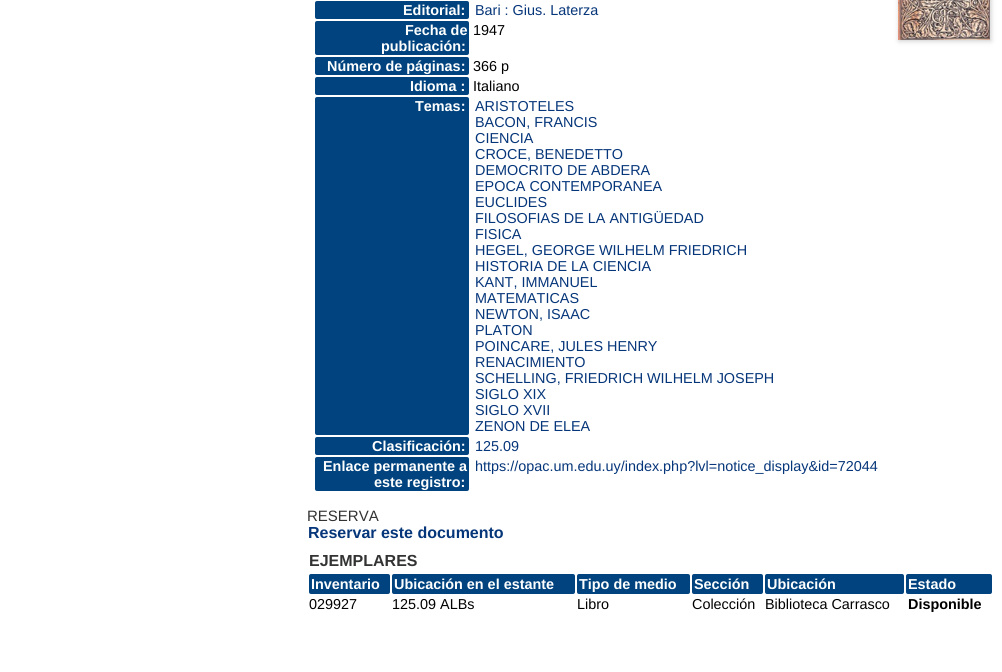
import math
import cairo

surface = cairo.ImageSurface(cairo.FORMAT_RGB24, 1002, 672)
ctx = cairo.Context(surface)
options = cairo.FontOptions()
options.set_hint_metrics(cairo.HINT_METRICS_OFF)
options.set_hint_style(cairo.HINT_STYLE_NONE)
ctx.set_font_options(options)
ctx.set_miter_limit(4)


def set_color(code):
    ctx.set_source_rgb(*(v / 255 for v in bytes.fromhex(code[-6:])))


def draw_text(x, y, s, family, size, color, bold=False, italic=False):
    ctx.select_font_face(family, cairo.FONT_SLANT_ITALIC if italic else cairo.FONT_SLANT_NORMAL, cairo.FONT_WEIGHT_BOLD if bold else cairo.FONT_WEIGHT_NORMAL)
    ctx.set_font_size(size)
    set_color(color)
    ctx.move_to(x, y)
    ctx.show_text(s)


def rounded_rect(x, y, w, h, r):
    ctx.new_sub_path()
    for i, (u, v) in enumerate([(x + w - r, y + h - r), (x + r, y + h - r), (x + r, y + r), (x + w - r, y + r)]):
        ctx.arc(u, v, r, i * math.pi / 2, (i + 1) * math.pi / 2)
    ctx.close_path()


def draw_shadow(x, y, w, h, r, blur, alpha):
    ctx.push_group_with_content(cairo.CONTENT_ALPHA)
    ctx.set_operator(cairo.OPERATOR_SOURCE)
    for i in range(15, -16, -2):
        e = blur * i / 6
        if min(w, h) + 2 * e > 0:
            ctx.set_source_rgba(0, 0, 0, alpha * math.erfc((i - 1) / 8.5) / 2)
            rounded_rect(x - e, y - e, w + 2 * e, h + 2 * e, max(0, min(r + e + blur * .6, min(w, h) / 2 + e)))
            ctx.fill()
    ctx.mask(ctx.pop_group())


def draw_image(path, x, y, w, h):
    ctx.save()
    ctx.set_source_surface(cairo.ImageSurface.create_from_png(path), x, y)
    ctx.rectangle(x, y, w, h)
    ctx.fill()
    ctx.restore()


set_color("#ffffff")
ctx.paint()
set_color("#00437e")
rounded_rect(315, 1, 154, 18, 2)
ctx.fill()
draw_text(403, 15, "Editorial:", "Liberation Sans", 14.4, "#ffffff", bold=True)
draw_text(475, 15, "Bari : Gius. Laterza", "Liberation Sans", 14.4, "#06367a")
set_color("#00437e")
rounded_rect(315, 21, 154, 34, 2)
ctx.fill()
draw_text(405, 35, "Fecha de", "Liberation Sans", 14.4, "#ffffff", bold=True)
draw_text(381, 51, "publicación:", "Liberation Sans", 14.4, "#ffffff", bold=True)
draw_text(473, 35, "1947", "Liberation Sans", 14.4, "#000000")
set_color("#00437e")
rounded_rect(315, 57, 154, 18, 2)
ctx.fill()
draw_text(327, 71, "Número de páginas:", "Liberation Sans", 14.4, "#ffffff", bold=True)
draw_text(473, 71, "366 p", "Liberation Sans", 14.4, "#000000")
set_color("#00437e")
rounded_rect(315, 77, 154, 18, 2)
ctx.fill()
draw_text(410, 91, "Idioma :", "Liberation Sans", 14.4, "#ffffff", bold=True)
draw_text(473, 91, "Italiano", "Liberation Sans", 14.4, "#000000")
set_color("#00437e")
rounded_rect(315, 97, 154, 338, 2)
ctx.fill()
draw_text(415, 111, "Temas:", "Liberation Sans", 14.4, "#ffffff", bold=True)
draw_text(475, 111, "ARISTOTELES", "Liberation Sans", 14.4, "#06367a")
draw_text(475, 127, "BACON, FRANCIS", "Liberation Sans", 14.4, "#06367a")
draw_text(475, 143, "CIENCIA", "Liberation Sans", 14.4, "#06367a")
draw_text(475, 159, "CROCE, BENEDETTO", "Liberation Sans", 14.4, "#06367a")
draw_text(475, 175, "DEMOCRITO DE ABDERA", "Liberation Sans", 14.4, "#06367a")
draw_text(475, 191, "EPOCA CONTEMPORANEA", "Liberation Sans", 14.4, "#06367a")
draw_text(475, 207, "EUCLIDES", "Liberation Sans", 14.4, "#06367a")
draw_text(475, 223, "FILOSOFIAS DE LA ANTIGÜEDAD", "Liberation Sans", 14.4, "#06367a")
draw_text(475, 239, "FISICA", "Liberation Sans", 14.4, "#06367a")
draw_text(475, 255, "HEGEL, GEORGE WILHELM FRIEDRICH", "Liberation Sans", 14.4, "#06367a")
draw_text(475, 271, "HISTORIA DE LA CIENCIA", "Liberation Sans", 14.4, "#06367a")
draw_text(475, 287, "KANT, IMMANUEL", "Liberation Sans", 14.4, "#06367a")
draw_text(475, 303, "MATEMATICAS", "Liberation Sans", 14.4, "#06367a")
draw_text(475, 319, "NEWTON, ISAAC", "Liberation Sans", 14.4, "#06367a")
draw_text(475, 335, "PLATON", "Liberation Sans", 14.4, "#06367a")
draw_text(475, 351, "POINCARE, JULES HENRY", "Liberation Sans", 14.4, "#06367a")
draw_text(475, 367, "RENACIMIENTO", "Liberation Sans", 14.4, "#06367a")
draw_text(475, 383, "SCHELLING, FRIEDRICH WILHELM JOSEPH", "Liberation Sans", 14.4, "#06367a")
draw_text(475, 399, "SIGLO XIX", "Liberation Sans", 14.4, "#06367a")
draw_text(475, 415, "SIGLO XVII", "Liberation Sans", 14.4, "#06367a")
draw_text(475, 431, "ZENON DE ELEA", "Liberation Sans", 14.4, "#06367a")
set_color("#00437e")
rounded_rect(315, 437, 154, 18, 2)
ctx.fill()
draw_text(372, 451, "Clasificación:", "Liberation Sans", 14.4, "#ffffff", bold=True)
draw_text(475, 451, "125.09", "Liberation Sans", 14.4, "#06367a")
set_color("#00437e")
rounded_rect(315, 457, 154, 34, 2)
ctx.fill()
draw_text(323, 471, "Enlace permanente a", "Liberation Sans", 14.4, "#ffffff", bold=True)
draw_text(374, 487, "este registro:", "Liberation Sans", 14.4, "#ffffff", bold=True)
draw_text(475, 471, "https://opac.um.edu.uy/index.php?lvl=notice_display&id=72044", "Liberation Sans", 14.4, "#06367a")
set_color("#cccccc")
draw_shadow(899, -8, 92, 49, 0, 2.5, 1)
draw_image("assets/img1.png", 898, 0, 92, 40)
draw_text(307, 521, "RESERVA", "Liberation Sans", 15, "#333333")
draw_text(308, 538, "Reservar este documento", "Liberation Sans", 16, "#06367a", bold=True)
draw_text(309, 566, "EJEMPLARES", "Liberation Sans", 16, "#333333", bold=True)
set_color("#00437e")
rounded_rect(309, 574, 81, 20, 2)
ctx.fill()
draw_text(311, 589, "Inventario", "Liberation Sans", 14.4, "#ffffff", bold=True)
set_color("#00437e")
rounded_rect(392, 574, 183, 20, 2)
ctx.fill()
draw_text(394, 589, "Ubicación en el estante", "Liberation Sans", 14.4, "#ffffff", bold=True)
set_color("#00437e")
rounded_rect(577, 574, 113, 20, 2)
ctx.fill()
draw_text(579, 589, "Tipo de medio", "Liberation Sans", 14.4, "#ffffff", bold=True)
set_color("#00437e")
rounded_rect(692, 574, 71, 20, 2)
ctx.fill()
draw_text(694, 589, "Sección", "Liberation Sans", 14.4, "#ffffff", bold=True)
set_color("#00437e")
rounded_rect(765, 574, 139, 20, 2)
ctx.fill()
draw_text(767, 589, "Ubicación", "Liberation Sans", 14.4, "#ffffff", bold=True)
set_color("#00437e")
rounded_rect(906, 574, 86, 20, 2)
ctx.fill()
draw_text(908, 589, "Estado", "Liberation Sans", 14.4, "#ffffff", bold=True)
draw_text(309, 609, "029927", "Liberation Sans", 14.4, "#000000")
draw_text(392, 609, "125.09 ALBs", "Liberation Sans", 14.4, "#000000")
draw_text(577, 609, "Libro", "Liberation Sans", 14.4, "#000000")
draw_text(692, 609, "Colección", "Liberation Sans", 14.4, "#000000")
draw_text(765, 609, "Biblioteca Carrasco", "Liberation Sans", 14.4, "#000000")
draw_text(908, 609, "Disponible", "Liberation Sans", 14.4, "#000000", bold=True)
surface.write_to_png("output.png")
